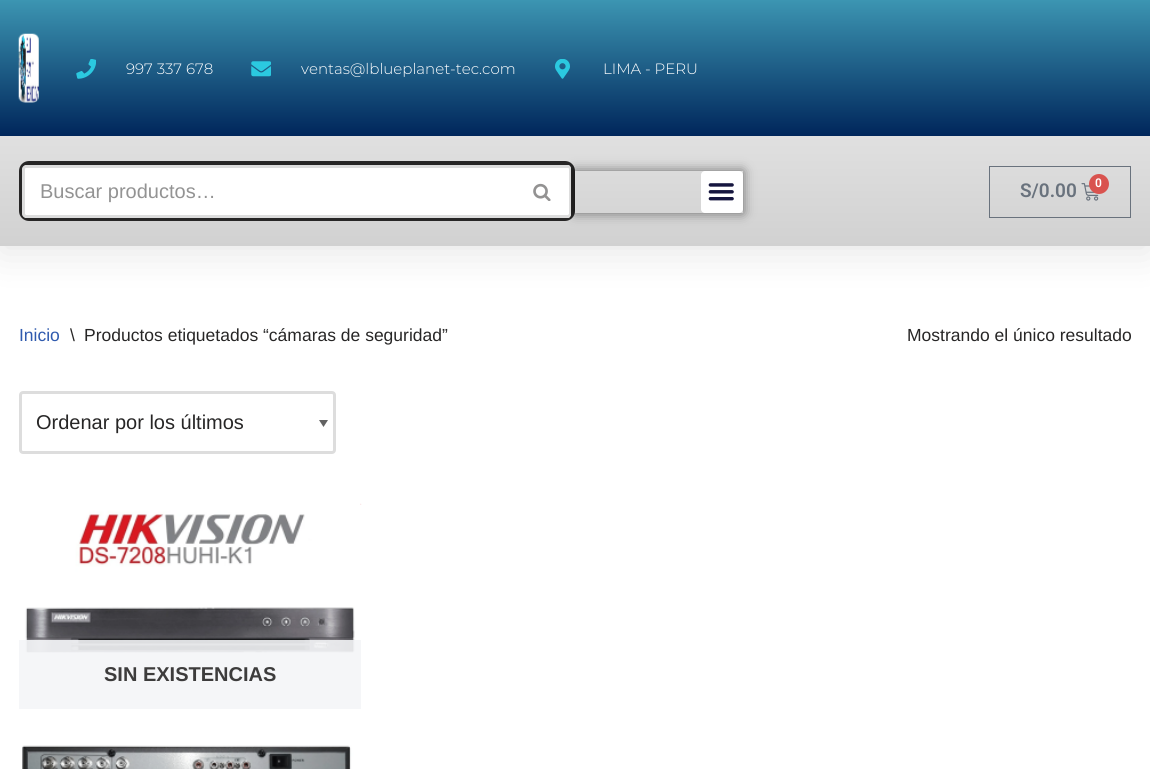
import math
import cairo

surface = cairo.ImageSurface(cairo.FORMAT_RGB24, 1150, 769)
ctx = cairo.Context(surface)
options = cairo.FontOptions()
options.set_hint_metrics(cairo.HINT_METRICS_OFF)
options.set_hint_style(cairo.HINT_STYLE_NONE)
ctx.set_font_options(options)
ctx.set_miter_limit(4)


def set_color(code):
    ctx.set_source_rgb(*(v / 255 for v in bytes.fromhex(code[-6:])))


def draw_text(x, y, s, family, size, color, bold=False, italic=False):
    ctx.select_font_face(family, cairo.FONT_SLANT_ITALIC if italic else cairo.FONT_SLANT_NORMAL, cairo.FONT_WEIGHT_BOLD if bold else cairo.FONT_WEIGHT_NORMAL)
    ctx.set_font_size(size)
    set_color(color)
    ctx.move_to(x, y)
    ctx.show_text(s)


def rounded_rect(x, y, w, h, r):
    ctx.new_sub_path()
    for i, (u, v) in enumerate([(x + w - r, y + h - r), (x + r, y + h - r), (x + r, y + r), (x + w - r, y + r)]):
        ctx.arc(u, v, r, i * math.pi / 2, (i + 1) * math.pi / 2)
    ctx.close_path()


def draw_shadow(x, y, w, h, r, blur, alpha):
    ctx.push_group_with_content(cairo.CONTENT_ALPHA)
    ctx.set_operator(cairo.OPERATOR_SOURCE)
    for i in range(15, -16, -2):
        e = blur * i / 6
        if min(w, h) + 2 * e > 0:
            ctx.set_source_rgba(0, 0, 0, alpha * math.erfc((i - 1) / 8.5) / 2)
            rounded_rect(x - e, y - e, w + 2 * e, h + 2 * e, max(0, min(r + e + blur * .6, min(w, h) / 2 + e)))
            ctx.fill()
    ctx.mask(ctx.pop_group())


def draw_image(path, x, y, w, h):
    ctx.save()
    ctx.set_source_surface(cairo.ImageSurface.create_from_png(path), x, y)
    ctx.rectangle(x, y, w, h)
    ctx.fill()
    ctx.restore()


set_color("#ffffff")
ctx.paint()
set_color("#000000")
draw_shadow(0, 6, 1150, 247, 0, 19, 0.1)
gradient = cairo.LinearGradient(575, 0, 575, 136)
gradient.add_color_stop_rgba(0, 0.235, 0.584, 0.698, 1)
gradient.add_color_stop_rgba(1, 0, 0.149, 0.357, 1)
ctx.set_source(gradient)
ctx.rectangle(0, 0, 1150, 136)
ctx.fill()
draw_image("assets/img1.png", 18, 33, 21, 70)
draw_image("assets/img2.png", 76, 59, 20, 20)
draw_text(126, 74, "997 337 678", "Montserrat Light", 15, "#ffffff")
draw_image("assets/img3.png", 251, 61, 20, 16)
draw_text(301, 74, "ventas@lblueplanet-tec.com", "Montserrat Light", 15, "#ffffff")
draw_image("assets/img4.png", 555, 59, 15, 20)
draw_text(603, 74, "LIMA - PERU", "Montserrat Light", 15, "#ffffff")
gradient = cairo.LinearGradient(575, 136, 575, 246)
gradient.add_color_stop_rgba(0, 0.878, 0.878, 0.878, 1)
gradient.add_color_stop_rgba(1, 0.82, 0.82, 0.82, 1)
ctx.set_source(gradient)
ctx.rectangle(0, 136, 1150, 110)
ctx.fill()
rounded_rect(21, 163, 552, 56, 8)
set_color("#272626")
ctx.set_line_width(4)
ctx.stroke()
set_color("#ffffff")
ctx.new_path()
ctx.move_to(27, 165)
ctx.line_to(515, 165)
ctx.line_to(515, 218)
ctx.line_to(27, 218)
ctx.curve_to(25, 218, 23, 216, 23, 214)
ctx.line_to(23, 169)
ctx.curve_to(23, 167, 25, 165, 27, 165)
ctx.close_path()
ctx.fill()
set_color("#dddddd")
ctx.set_fill_rule(cairo.FILL_RULE_EVEN_ODD)
ctx.new_path()
ctx.move_to(26, 165)
ctx.line_to(515, 165)
ctx.line_to(515, 218)
ctx.line_to(26, 218)
ctx.curve_to(24, 218, 22, 216, 22, 214)
ctx.line_to(22, 169)
ctx.curve_to(22, 167, 24, 165, 26, 165)
ctx.close_path()
ctx.move_to(26, 168)
ctx.line_to(515, 168)
ctx.line_to(515, 215)
ctx.line_to(26, 215)
ctx.curve_to(26, 215, 25, 214, 25, 214)
ctx.line_to(25, 169)
ctx.curve_to(25, 168, 26, 168, 26, 168)
ctx.close_path()
ctx.fill()
draw_text(40, 198, "Buscar productos…", "Liberation Sans", 20, "#939393")
ctx.save()
ctx.new_path()
ctx.move_to(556, 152)
ctx.line_to(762, 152)
ctx.line_to(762, 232)
ctx.line_to(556, 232)
ctx.close_path()
ctx.move_to(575, 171)
ctx.line_to(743, 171)
ctx.line_to(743, 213)
ctx.line_to(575, 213)
ctx.close_path()
ctx.clip()
set_color("#000000")
draw_shadow(575, 171, 168, 42, 0, 6, 0.5)
ctx.restore()
set_color("#ffffff")
ctx.new_path()
ctx.move_to(515, 165)
ctx.line_to(567, 165)
ctx.curve_to(569, 165, 571, 167, 571, 169)
ctx.line_to(571, 214)
ctx.curve_to(571, 216, 569, 218, 567, 218)
ctx.line_to(515, 218)
ctx.close_path()
ctx.fill()
set_color("#dddddd")
ctx.new_path()
ctx.move_to(515, 165)
ctx.line_to(568, 165)
ctx.curve_to(570, 165, 571, 167, 571, 169)
ctx.line_to(571, 214)
ctx.curve_to(571, 216, 570, 218, 568, 218)
ctx.line_to(515, 218)
ctx.close_path()
ctx.move_to(515, 168)
ctx.line_to(568, 168)
ctx.curve_to(568, 168, 569, 168, 569, 169)
ctx.line_to(569, 214)
ctx.curve_to(569, 214, 568, 215, 568, 215)
ctx.line_to(515, 215)
ctx.close_path()
ctx.fill()
draw_image("assets/img5.png", 533, 183, 18, 18)
set_color("#ffffff")
rounded_rect(701, 171, 42, 42, 4)
ctx.fill()
draw_image("assets/img6.png", 708, 183, 26, 18)
ctx.rectangle(989.5, 166.5, 141, 51)
set_color("#69727d")
ctx.set_line_width(1)
ctx.stroke()
draw_text(1020, 197, "S/0.00", "Roboto SemiBold", 19, "#69727d")
draw_image("assets/img7.png", 1081, 183, 18, 18)
set_color("#d9534f")
ctx.arc(1099, 184, 10, 0, 2 * math.pi)
ctx.fill()
draw_text(1095, 187, "0", "Roboto SemiBold", 12, "#ffffff")
draw_text(19, 341, "Inicio", "Liberation Sans", 17.5, "#2f5aae")
draw_text(70, 341, "\\", "Liberation Sans", 17.5, "#272626")
draw_text(84, 341, "Productos etiquetados “cámaras de seguridad”", "Liberation Sans", 17.5, "#272626")
draw_text(907, 341, "Mostrando el único resultado", "Liberation Sans", 17.5, "#272626")
set_color("#626262")
ctx.set_fill_rule(cairo.FILL_RULE_WINDING)
ctx.new_path()
ctx.move_to(328, 420)
ctx.line_to(323.5, 427)
ctx.line_to(319, 420)
ctx.close_path()
ctx.fill()
rounded_rect(20.5, 392.5, 314, 60, 2.5)
set_color("#dddddd")
ctx.set_line_width(3)
ctx.stroke()
draw_text(36, 429, "Ordenar por los últimos", "Liberation Sans", 20, "#272626")
draw_image("assets/img8.png", 22, 503, 340, 266)
ctx.set_source_rgba(0.957, 0.961, 0.969, 0.9)
ctx.rectangle(19, 640, 342, 69)
ctx.fill()
draw_text(104, 681, "SIN EXISTENCIAS", "Liberation Sans", 20, "#3d3c3c", bold=True)
surface.write_to_png("output.png")
